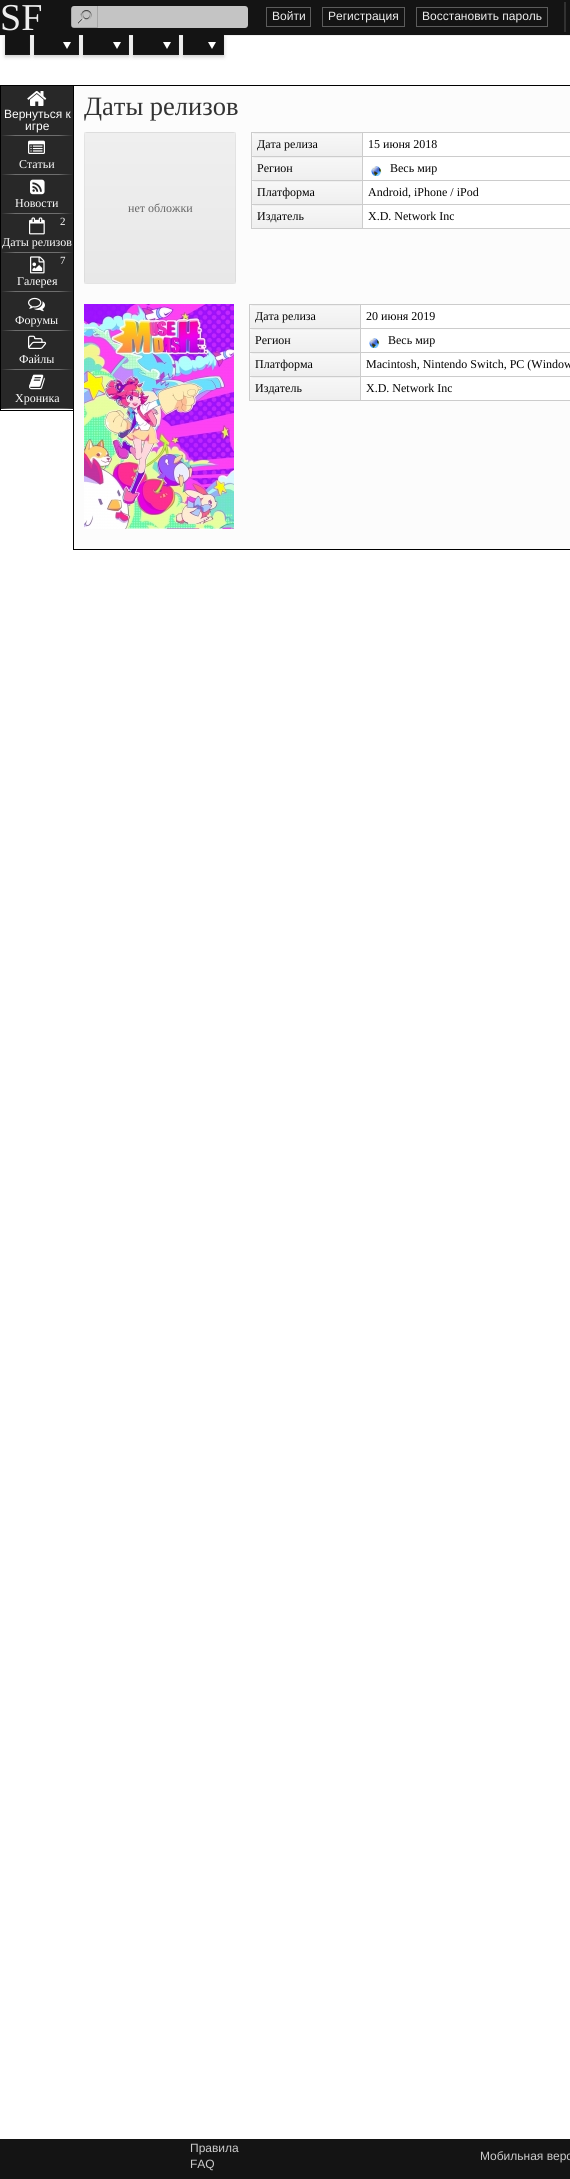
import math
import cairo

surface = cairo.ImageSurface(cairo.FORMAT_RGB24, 570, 2179)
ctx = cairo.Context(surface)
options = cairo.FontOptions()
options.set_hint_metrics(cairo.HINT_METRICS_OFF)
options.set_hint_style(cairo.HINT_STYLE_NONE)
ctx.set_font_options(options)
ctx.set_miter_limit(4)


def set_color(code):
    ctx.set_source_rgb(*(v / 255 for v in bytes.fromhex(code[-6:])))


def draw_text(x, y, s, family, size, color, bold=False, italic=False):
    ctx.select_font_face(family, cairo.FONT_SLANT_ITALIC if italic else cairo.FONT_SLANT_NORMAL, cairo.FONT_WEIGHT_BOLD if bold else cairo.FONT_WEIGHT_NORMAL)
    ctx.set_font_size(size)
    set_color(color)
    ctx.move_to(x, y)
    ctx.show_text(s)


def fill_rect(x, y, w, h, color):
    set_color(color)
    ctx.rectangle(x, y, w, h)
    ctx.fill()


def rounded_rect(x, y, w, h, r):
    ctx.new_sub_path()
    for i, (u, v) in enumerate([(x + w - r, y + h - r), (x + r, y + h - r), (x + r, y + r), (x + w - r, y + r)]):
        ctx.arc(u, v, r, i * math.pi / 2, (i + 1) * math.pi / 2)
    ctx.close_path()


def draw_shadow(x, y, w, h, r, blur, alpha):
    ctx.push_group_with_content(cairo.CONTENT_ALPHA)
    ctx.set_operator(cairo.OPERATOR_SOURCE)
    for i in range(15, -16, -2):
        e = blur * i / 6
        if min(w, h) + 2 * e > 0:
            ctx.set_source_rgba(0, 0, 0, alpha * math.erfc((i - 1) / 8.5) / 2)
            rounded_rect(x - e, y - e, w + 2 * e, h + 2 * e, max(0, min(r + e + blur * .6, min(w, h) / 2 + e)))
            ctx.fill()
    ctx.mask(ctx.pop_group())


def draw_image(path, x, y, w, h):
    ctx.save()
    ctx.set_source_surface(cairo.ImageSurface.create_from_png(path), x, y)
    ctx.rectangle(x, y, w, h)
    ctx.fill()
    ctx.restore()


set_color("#ffffff")
ctx.paint()
set_color("#000000")
draw_shadow(5, 37, 25, 20, 0, 2, 0.2)
fill_rect(6, 35, 23, 19, "#141414")
fill_rect(29, 35, 1, 20, "#191919")
fill_rect(5, 54, 25, 1, "#191919")
fill_rect(5, 35, 1, 20, "#191919")
set_color("#000000")
draw_shadow(34, 37, 45, 20, 0, 2, 0.2)
fill_rect(35, 35, 43, 19, "#141414")
fill_rect(78, 35, 1, 20, "#191919")
fill_rect(34, 54, 45, 1, "#191919")
fill_rect(34, 35, 1, 20, "#191919")
set_color("#000000")
draw_shadow(83, 37, 46, 20, 0, 2, 0.2)
fill_rect(84, 35, 44, 19, "#141414")
fill_rect(128, 35, 1, 20, "#191919")
fill_rect(83, 54, 46, 1, "#191919")
fill_rect(83, 35, 1, 20, "#191919")
set_color("#000000")
draw_shadow(133, 37, 46, 20, 0, 2, 0.2)
fill_rect(134, 35, 44, 19, "#141414")
fill_rect(178, 35, 1, 20, "#191919")
fill_rect(133, 54, 46, 1, "#191919")
fill_rect(133, 35, 1, 20, "#191919")
set_color("#000000")
draw_shadow(183, 37, 41, 20, 0, 2, 0.2)
fill_rect(184, 35, 39, 19, "#141414")
fill_rect(223, 35, 1, 20, "#191919")
fill_rect(183, 54, 41, 1, "#191919")
fill_rect(183, 35, 1, 20, "#191919")
set_color("#141414")
draw_shadow(0, 0, 570, 35, 0, 0.5, 0.25)
fill_rect(0, 0, 570, 35, "#141414")
draw_text(0, 30, "SF", "Liberation Serif", 38, "#eeeeee")
set_color("#c4c4c4")
rounded_rect(71, 6, 177, 22, 3)
ctx.fill()
ctx.rectangle(71.5, 5.5, 26, 22)
ctx.set_source_rgba(0, 0, 0, 0.15)
ctx.set_line_width(1)
ctx.stroke()
draw_image("assets/img1.png", 78, 10, 14, 14)
ctx.rectangle(266.5, 7.5, 44, 19)
set_color("#5c5c5c")
ctx.stroke()
draw_text(272, 20, "Войти", "Liberation Sans", 12, "#eeeeee")
ctx.rectangle(322.5, 7.5, 82, 19)
set_color("#5c5c5c")
ctx.stroke()
draw_text(328, 20, "Регистрация", "Liberation Sans", 12, "#eeeeee")
ctx.rectangle(416.5, 7.5, 131, 19)
set_color("#5c5c5c")
ctx.stroke()
draw_text(422, 20, "Восстановить пароль", "Liberation Sans", 12, "#eeeeee")
fill_rect(564, 2, 2, 30, "#313131")
set_color("#ffffff")
ctx.new_path()
ctx.move_to(63, 42)
ctx.line_to(71, 42)
ctx.line_to(67, 49)
ctx.close_path()
ctx.fill()
ctx.new_path()
ctx.move_to(113, 42)
ctx.line_to(121, 42)
ctx.line_to(117, 49)
ctx.close_path()
ctx.fill()
ctx.new_path()
ctx.move_to(163, 42)
ctx.line_to(171, 42)
ctx.line_to(167, 49)
ctx.close_path()
ctx.fill()
ctx.new_path()
ctx.move_to(208, 42)
ctx.line_to(216, 42)
ctx.line_to(212, 49)
ctx.close_path()
ctx.fill()
set_color("#fcfcfc")
ctx.rectangle(73.5, 85.5, 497, 464)
ctx.fill_preserve()
set_color("#000000")
ctx.stroke()
fill_rect(1, 86, 72, 322, "#282828")
ctx.rectangle(0.5, 85.5, 73, 325)
set_color("#000000")
ctx.stroke()
gradient = cairo.LinearGradient(1, 409, 73, 409)
gradient.add_color_stop_rgba(0, 0.157, 0.157, 0.157, 1)
gradient.add_color_stop_rgba(0.2, 0.431, 0.431, 0.431, 1)
gradient.add_color_stop_rgba(0.8, 0.431, 0.431, 0.431, 1)
gradient.add_color_stop_rgba(1, 0.157, 0.157, 0.157, 1)
ctx.set_source(gradient)
ctx.rectangle(1, 408, 72, 1)
ctx.fill()
gradient = cairo.LinearGradient(1, 136, 73, 136)
gradient.add_color_stop_rgba(0, 0.157, 0.157, 0.157, 1)
gradient.add_color_stop_rgba(0.2, 0.431, 0.431, 0.431, 1)
gradient.add_color_stop_rgba(0.8, 0.431, 0.431, 0.431, 1)
gradient.add_color_stop_rgba(1, 0.157, 0.157, 0.157, 1)
ctx.set_source(gradient)
ctx.rectangle(1, 135, 72, 1)
ctx.fill()
draw_image("assets/img2.png", 27, 91, 20, 15)
draw_text(4, 118, "Вернуться к", "Liberation Sans", 12, "#ffffff")
draw_text(25, 130, "игре", "Liberation Sans", 12, "#ffffff")
gradient = cairo.LinearGradient(1, 175, 73, 175)
gradient.add_color_stop_rgba(0, 0.157, 0.157, 0.157, 1)
gradient.add_color_stop_rgba(0.2, 0.431, 0.431, 0.431, 1)
gradient.add_color_stop_rgba(0.8, 0.431, 0.431, 0.431, 1)
gradient.add_color_stop_rgba(1, 0.157, 0.157, 0.157, 1)
ctx.set_source(gradient)
ctx.rectangle(1, 174, 72, 1)
ctx.fill()
draw_image("assets/img3.png", 28, 140, 17, 14)
draw_text(19, 168, "Статьи", "Liberation Serif", 12, "#ffffff")
gradient = cairo.LinearGradient(1, 214, 73, 214)
gradient.add_color_stop_rgba(0, 0.157, 0.157, 0.157, 1)
gradient.add_color_stop_rgba(0.2, 0.431, 0.431, 0.431, 1)
gradient.add_color_stop_rgba(0.8, 0.431, 0.431, 0.431, 1)
gradient.add_color_stop_rgba(1, 0.157, 0.157, 0.157, 1)
ctx.set_source(gradient)
ctx.rectangle(1, 213, 72, 1)
ctx.fill()
draw_image("assets/img4.png", 30, 179, 15, 16)
draw_text(15, 207, "Новости", "Liberation Serif", 12, "#ffffff")
gradient = cairo.LinearGradient(1, 253, 73, 253)
gradient.add_color_stop_rgba(0, 0.157, 0.157, 0.157, 1)
gradient.add_color_stop_rgba(0.2, 0.431, 0.431, 0.431, 1)
gradient.add_color_stop_rgba(0.8, 0.431, 0.431, 0.431, 1)
gradient.add_color_stop_rgba(1, 0.157, 0.157, 0.157, 1)
ctx.set_source(gradient)
ctx.rectangle(1, 252, 72, 1)
ctx.fill()
draw_text(60, 225, "2", "Liberation Serif", 11, "#ffffff")
draw_image("assets/img5.png", 29, 217, 16, 18)
draw_text(2, 246, "Даты релизов", "Liberation Serif", 12, "#ffffff")
gradient = cairo.LinearGradient(1, 292, 73, 292)
gradient.add_color_stop_rgba(0, 0.157, 0.157, 0.157, 1)
gradient.add_color_stop_rgba(0.2, 0.431, 0.431, 0.431, 1)
gradient.add_color_stop_rgba(0.8, 0.431, 0.431, 0.431, 1)
gradient.add_color_stop_rgba(1, 0.157, 0.157, 0.157, 1)
ctx.set_source(gradient)
ctx.rectangle(1, 291, 72, 1)
ctx.fill()
draw_text(60, 264, "7", "Liberation Serif", 11, "#ffffff")
draw_image("assets/img6.png", 30, 256, 15, 18)
draw_text(17, 285, "Галерея", "Liberation Serif", 12, "#ffffff")
gradient = cairo.LinearGradient(1, 331, 73, 331)
gradient.add_color_stop_rgba(0, 0.157, 0.157, 0.157, 1)
gradient.add_color_stop_rgba(0.2, 0.431, 0.431, 0.431, 1)
gradient.add_color_stop_rgba(0.8, 0.431, 0.431, 0.431, 1)
gradient.add_color_stop_rgba(1, 0.157, 0.157, 0.157, 1)
ctx.set_source(gradient)
ctx.rectangle(1, 330, 72, 1)
ctx.fill()
draw_image("assets/img7.png", 28, 297, 17, 15)
draw_text(15, 324, "Форумы", "Liberation Serif", 12, "#ffffff")
gradient = cairo.LinearGradient(1, 370, 73, 370)
gradient.add_color_stop_rgba(0, 0.157, 0.157, 0.157, 1)
gradient.add_color_stop_rgba(0.2, 0.431, 0.431, 0.431, 1)
gradient.add_color_stop_rgba(0.8, 0.431, 0.431, 0.431, 1)
gradient.add_color_stop_rgba(1, 0.157, 0.157, 0.157, 1)
ctx.set_source(gradient)
ctx.rectangle(1, 369, 72, 1)
ctx.fill()
draw_image("assets/img8.png", 28, 335, 19, 14)
draw_text(19, 363, "Файлы", "Liberation Serif", 12, "#ffffff")
gradient = cairo.LinearGradient(1, 409, 73, 409)
gradient.add_color_stop_rgba(0, 0.431, 0.431, 0.431, 0)
gradient.add_color_stop_rgba(0.2, 0.431, 0.431, 0.431, 1)
gradient.add_color_stop_rgba(0.8, 0.431, 0.431, 0.431, 1)
gradient.add_color_stop_rgba(1, 0.431, 0.431, 0.431, 0)
ctx.set_source(gradient)
ctx.rectangle(1, 408, 72, 1)
ctx.fill()
draw_image("assets/img9.png", 29, 374, 16, 16)
draw_text(15, 402, "Хроника", "Liberation Serif", 12, "#ffffff")
draw_text(84, 115, "Даты релизов", "Liberation Serif", 26.5, "#333333")
ctx.save()
rounded_rect(84, 132, 152, 152, 3)
ctx.clip()
gradient = cairo.LinearGradient(160, -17, 160, 133)
gradient.add_color_stop_rgba(0, 0.937, 0.937, 0.937, 1)
gradient.add_color_stop_rgba(1, 0.91, 0.91, 0.91, 1)
ctx.set_source(gradient)
ctx.rectangle(84, 132, 152, 1)
ctx.fill()
gradient = cairo.LinearGradient(160, 133, 160, 283)
gradient.add_color_stop_rgba(0, 0.937, 0.937, 0.937, 1)
gradient.add_color_stop_rgba(1, 0.91, 0.91, 0.91, 1)
ctx.set_source(gradient)
ctx.rectangle(84, 133, 152, 150)
ctx.fill()
gradient = cairo.LinearGradient(160, 283, 160, 433)
gradient.add_color_stop_rgba(0, 0.937, 0.937, 0.937, 1)
gradient.add_color_stop_rgba(1, 0.91, 0.91, 0.91, 1)
ctx.set_source(gradient)
ctx.rectangle(84, 283, 152, 1)
ctx.fill()
ctx.restore()
ctx.rectangle(84.5, 132.5, 151, 151)
ctx.set_source_rgba(0, 0, 0, 0.05)
ctx.stroke()
draw_text(128, 212, "нет обложки", "Liberation Serif", 12, "#666666")
ctx.save()
rounded_rect(252, 133, 111, 24, 3)
ctx.clip()
gradient = cairo.LinearGradient(308, 112, 308, 134)
gradient.add_color_stop_rgba(0, 0.969, 0.969, 0.969, 1)
gradient.add_color_stop_rgba(1, 0.937, 0.937, 0.937, 1)
ctx.set_source(gradient)
ctx.rectangle(252, 133, 111, 1)
ctx.fill()
gradient = cairo.LinearGradient(308, 134, 308, 156)
gradient.add_color_stop_rgba(0, 0.969, 0.969, 0.969, 1)
gradient.add_color_stop_rgba(1, 0.937, 0.937, 0.937, 1)
ctx.set_source(gradient)
ctx.rectangle(252, 134, 110, 22)
ctx.fill()
ctx.restore()
fill_rect(362, 132, 208, 1, "#cccccc")
fill_rect(362, 156, 208, 1, "#cccccc")
ctx.save()
rounded_rect(252, 157, 111, 24, 3)
ctx.clip()
gradient = cairo.LinearGradient(308, 136, 308, 158)
gradient.add_color_stop_rgba(0, 0.969, 0.969, 0.969, 1)
gradient.add_color_stop_rgba(1, 0.937, 0.937, 0.937, 1)
ctx.set_source(gradient)
ctx.rectangle(252, 157, 111, 1)
ctx.fill()
ctx.restore()
fill_rect(362, 180, 208, 1, "#cccccc")
ctx.save()
rounded_rect(252, 181, 111, 24, 3)
ctx.clip()
gradient = cairo.LinearGradient(308, 160, 308, 182)
gradient.add_color_stop_rgba(0, 0.969, 0.969, 0.969, 1)
gradient.add_color_stop_rgba(1, 0.937, 0.937, 0.937, 1)
ctx.set_source(gradient)
ctx.rectangle(252, 181, 111, 1)
ctx.fill()
ctx.restore()
fill_rect(362, 204, 208, 1, "#cccccc")
ctx.save()
rounded_rect(252, 205, 111, 24, 3)
ctx.clip()
gradient = cairo.LinearGradient(308, 184, 308, 206)
gradient.add_color_stop_rgba(0, 0.969, 0.969, 0.969, 1)
gradient.add_color_stop_rgba(1, 0.937, 0.937, 0.937, 1)
ctx.set_source(gradient)
ctx.rectangle(252, 205, 111, 1)
ctx.fill()
ctx.restore()
fill_rect(362, 228, 208, 1, "#cccccc")
fill_rect(362, 204, 1, 25, "#cccccc")
fill_rect(251, 204, 112, 1, "#cccccc")
fill_rect(362, 180, 1, 25, "#cccccc")
fill_rect(251, 180, 112, 1, "#cccccc")
fill_rect(362, 156, 1, 25, "#cccccc")
fill_rect(251, 156, 112, 1, "#cccccc")
fill_rect(362, 132, 1, 25, "#cccccc")
fill_rect(251, 132, 112, 1, "#cccccc")
fill_rect(251, 228, 112, 1, "#cccccc")
fill_rect(251, 204, 1, 25, "#cccccc")
fill_rect(251, 180, 1, 25, "#cccccc")
fill_rect(251, 156, 1, 25, "#cccccc")
fill_rect(251, 132, 1, 25, "#cccccc")
draw_text(257, 148, "Дата релиза", "Liberation Serif", 12, "#030303")
fill_rect(363, 133, 207, 23, "#ffffff")
draw_text(368, 148, "15 июня 2018", "Liberation Serif", 12, "#030303")
ctx.save()
rounded_rect(252, 157, 111, 24, 3)
ctx.clip()
gradient = cairo.LinearGradient(308, 158, 308, 180)
gradient.add_color_stop_rgba(0, 0.969, 0.969, 0.969, 1)
gradient.add_color_stop_rgba(1, 0.937, 0.937, 0.937, 1)
ctx.set_source(gradient)
ctx.rectangle(252, 158, 110, 22)
ctx.fill()
ctx.restore()
draw_text(257, 172, "Регион", "Liberation Serif", 12, "#030303")
fill_rect(363, 157, 207, 23, "#ffffff")
draw_image("assets/img10.png", 371, 166, 11, 10)
draw_text(390, 172, "Весь мир", "Liberation Serif", 12, "#030303")
ctx.save()
rounded_rect(252, 181, 111, 24, 3)
ctx.clip()
gradient = cairo.LinearGradient(308, 182, 308, 204)
gradient.add_color_stop_rgba(0, 0.969, 0.969, 0.969, 1)
gradient.add_color_stop_rgba(1, 0.937, 0.937, 0.937, 1)
ctx.set_source(gradient)
ctx.rectangle(252, 182, 110, 22)
ctx.fill()
ctx.restore()
draw_text(257, 196, "Платформа", "Liberation Serif", 12, "#030303")
fill_rect(363, 181, 207, 23, "#ffffff")
draw_text(368, 196, "Android, iPhone / iPod", "Liberation Serif", 12, "#030303")
ctx.save()
rounded_rect(252, 205, 111, 24, 3)
ctx.clip()
gradient = cairo.LinearGradient(308, 206, 308, 228)
gradient.add_color_stop_rgba(0, 0.969, 0.969, 0.969, 1)
gradient.add_color_stop_rgba(1, 0.937, 0.937, 0.937, 1)
ctx.set_source(gradient)
ctx.rectangle(252, 206, 110, 22)
ctx.fill()
ctx.restore()
draw_text(257, 220, "Издатель", "Liberation Serif", 12, "#030303")
fill_rect(363, 205, 207, 23, "#ffffff")
draw_text(368, 220, "X.D. Network Inc", "Liberation Serif", 12, "#030303")
draw_image("assets/img11.png", 84, 304, 150, 225)
ctx.save()
rounded_rect(250, 305, 111, 24, 3)
ctx.clip()
gradient = cairo.LinearGradient(306, 284, 306, 306)
gradient.add_color_stop_rgba(0, 0.969, 0.969, 0.969, 1)
gradient.add_color_stop_rgba(1, 0.937, 0.937, 0.937, 1)
ctx.set_source(gradient)
ctx.rectangle(250, 305, 111, 1)
ctx.fill()
gradient = cairo.LinearGradient(306, 306, 306, 328)
gradient.add_color_stop_rgba(0, 0.969, 0.969, 0.969, 1)
gradient.add_color_stop_rgba(1, 0.937, 0.937, 0.937, 1)
ctx.set_source(gradient)
ctx.rectangle(250, 306, 110, 22)
ctx.fill()
ctx.restore()
fill_rect(360, 304, 210, 1, "#cccccc")
fill_rect(360, 328, 210, 1, "#cccccc")
ctx.save()
rounded_rect(250, 329, 111, 24, 3)
ctx.clip()
gradient = cairo.LinearGradient(306, 308, 306, 330)
gradient.add_color_stop_rgba(0, 0.969, 0.969, 0.969, 1)
gradient.add_color_stop_rgba(1, 0.937, 0.937, 0.937, 1)
ctx.set_source(gradient)
ctx.rectangle(250, 329, 111, 1)
ctx.fill()
ctx.restore()
fill_rect(360, 352, 210, 1, "#cccccc")
ctx.save()
rounded_rect(250, 353, 111, 24, 3)
ctx.clip()
gradient = cairo.LinearGradient(306, 332, 306, 354)
gradient.add_color_stop_rgba(0, 0.969, 0.969, 0.969, 1)
gradient.add_color_stop_rgba(1, 0.937, 0.937, 0.937, 1)
ctx.set_source(gradient)
ctx.rectangle(250, 353, 111, 1)
ctx.fill()
ctx.restore()
fill_rect(360, 376, 210, 1, "#cccccc")
ctx.save()
rounded_rect(250, 377, 111, 24, 3)
ctx.clip()
gradient = cairo.LinearGradient(306, 356, 306, 378)
gradient.add_color_stop_rgba(0, 0.969, 0.969, 0.969, 1)
gradient.add_color_stop_rgba(1, 0.937, 0.937, 0.937, 1)
ctx.set_source(gradient)
ctx.rectangle(250, 377, 111, 1)
ctx.fill()
ctx.restore()
fill_rect(360, 400, 210, 1, "#cccccc")
fill_rect(360, 376, 1, 25, "#cccccc")
fill_rect(249, 376, 112, 1, "#cccccc")
fill_rect(360, 352, 1, 25, "#cccccc")
fill_rect(249, 352, 112, 1, "#cccccc")
fill_rect(360, 328, 1, 25, "#cccccc")
fill_rect(249, 328, 112, 1, "#cccccc")
fill_rect(360, 304, 1, 25, "#cccccc")
fill_rect(249, 304, 112, 1, "#cccccc")
fill_rect(249, 400, 112, 1, "#cccccc")
fill_rect(249, 376, 1, 25, "#cccccc")
fill_rect(249, 352, 1, 25, "#cccccc")
fill_rect(249, 328, 1, 25, "#cccccc")
fill_rect(249, 304, 1, 25, "#cccccc")
draw_text(255, 320, "Дата релиза", "Liberation Serif", 12, "#030303")
fill_rect(361, 305, 209, 23, "#ffffff")
draw_text(366, 320, "20 июня 2019", "Liberation Serif", 12, "#030303")
ctx.save()
rounded_rect(250, 329, 111, 24, 3)
ctx.clip()
gradient = cairo.LinearGradient(306, 330, 306, 352)
gradient.add_color_stop_rgba(0, 0.969, 0.969, 0.969, 1)
gradient.add_color_stop_rgba(1, 0.937, 0.937, 0.937, 1)
ctx.set_source(gradient)
ctx.rectangle(250, 330, 110, 22)
ctx.fill()
ctx.restore()
draw_text(255, 344, "Регион", "Liberation Serif", 12, "#030303")
fill_rect(361, 329, 209, 23, "#ffffff")
draw_image("assets/img10.png", 369, 338, 11, 10)
draw_text(388, 344, "Весь мир", "Liberation Serif", 12, "#030303")
ctx.save()
rounded_rect(250, 353, 111, 24, 3)
ctx.clip()
gradient = cairo.LinearGradient(306, 354, 306, 376)
gradient.add_color_stop_rgba(0, 0.969, 0.969, 0.969, 1)
gradient.add_color_stop_rgba(1, 0.937, 0.937, 0.937, 1)
ctx.set_source(gradient)
ctx.rectangle(250, 354, 110, 22)
ctx.fill()
ctx.restore()
draw_text(255, 368, "Платформа", "Liberation Serif", 12, "#030303")
fill_rect(361, 353, 209, 23, "#ffffff")
draw_text(366, 368, "Macintosh, Nintendo Switch, PC (Window", "Liberation Serif", 12, "#030303")
ctx.save()
rounded_rect(250, 377, 111, 24, 3)
ctx.clip()
gradient = cairo.LinearGradient(306, 378, 306, 400)
gradient.add_color_stop_rgba(0, 0.969, 0.969, 0.969, 1)
gradient.add_color_stop_rgba(1, 0.937, 0.937, 0.937, 1)
ctx.set_source(gradient)
ctx.rectangle(250, 378, 110, 22)
ctx.fill()
ctx.restore()
draw_text(255, 392, "Издатель", "Liberation Serif", 12, "#030303")
fill_rect(361, 377, 209, 23, "#ffffff")
draw_text(366, 392, "X.D. Network Inc", "Liberation Serif", 12, "#030303")
fill_rect(0, 2139, 570, 40, "#141414")
draw_text(190, 2152, "Правила", "Liberation Sans", 12, "#cccccc")
draw_text(190, 2168, "FAQ", "Liberation Sans", 12, "#cccccc")
draw_text(480, 2160, "Мобильная верс", "Liberation Sans", 12, "#cccccc")
surface.write_to_png("output.png")
